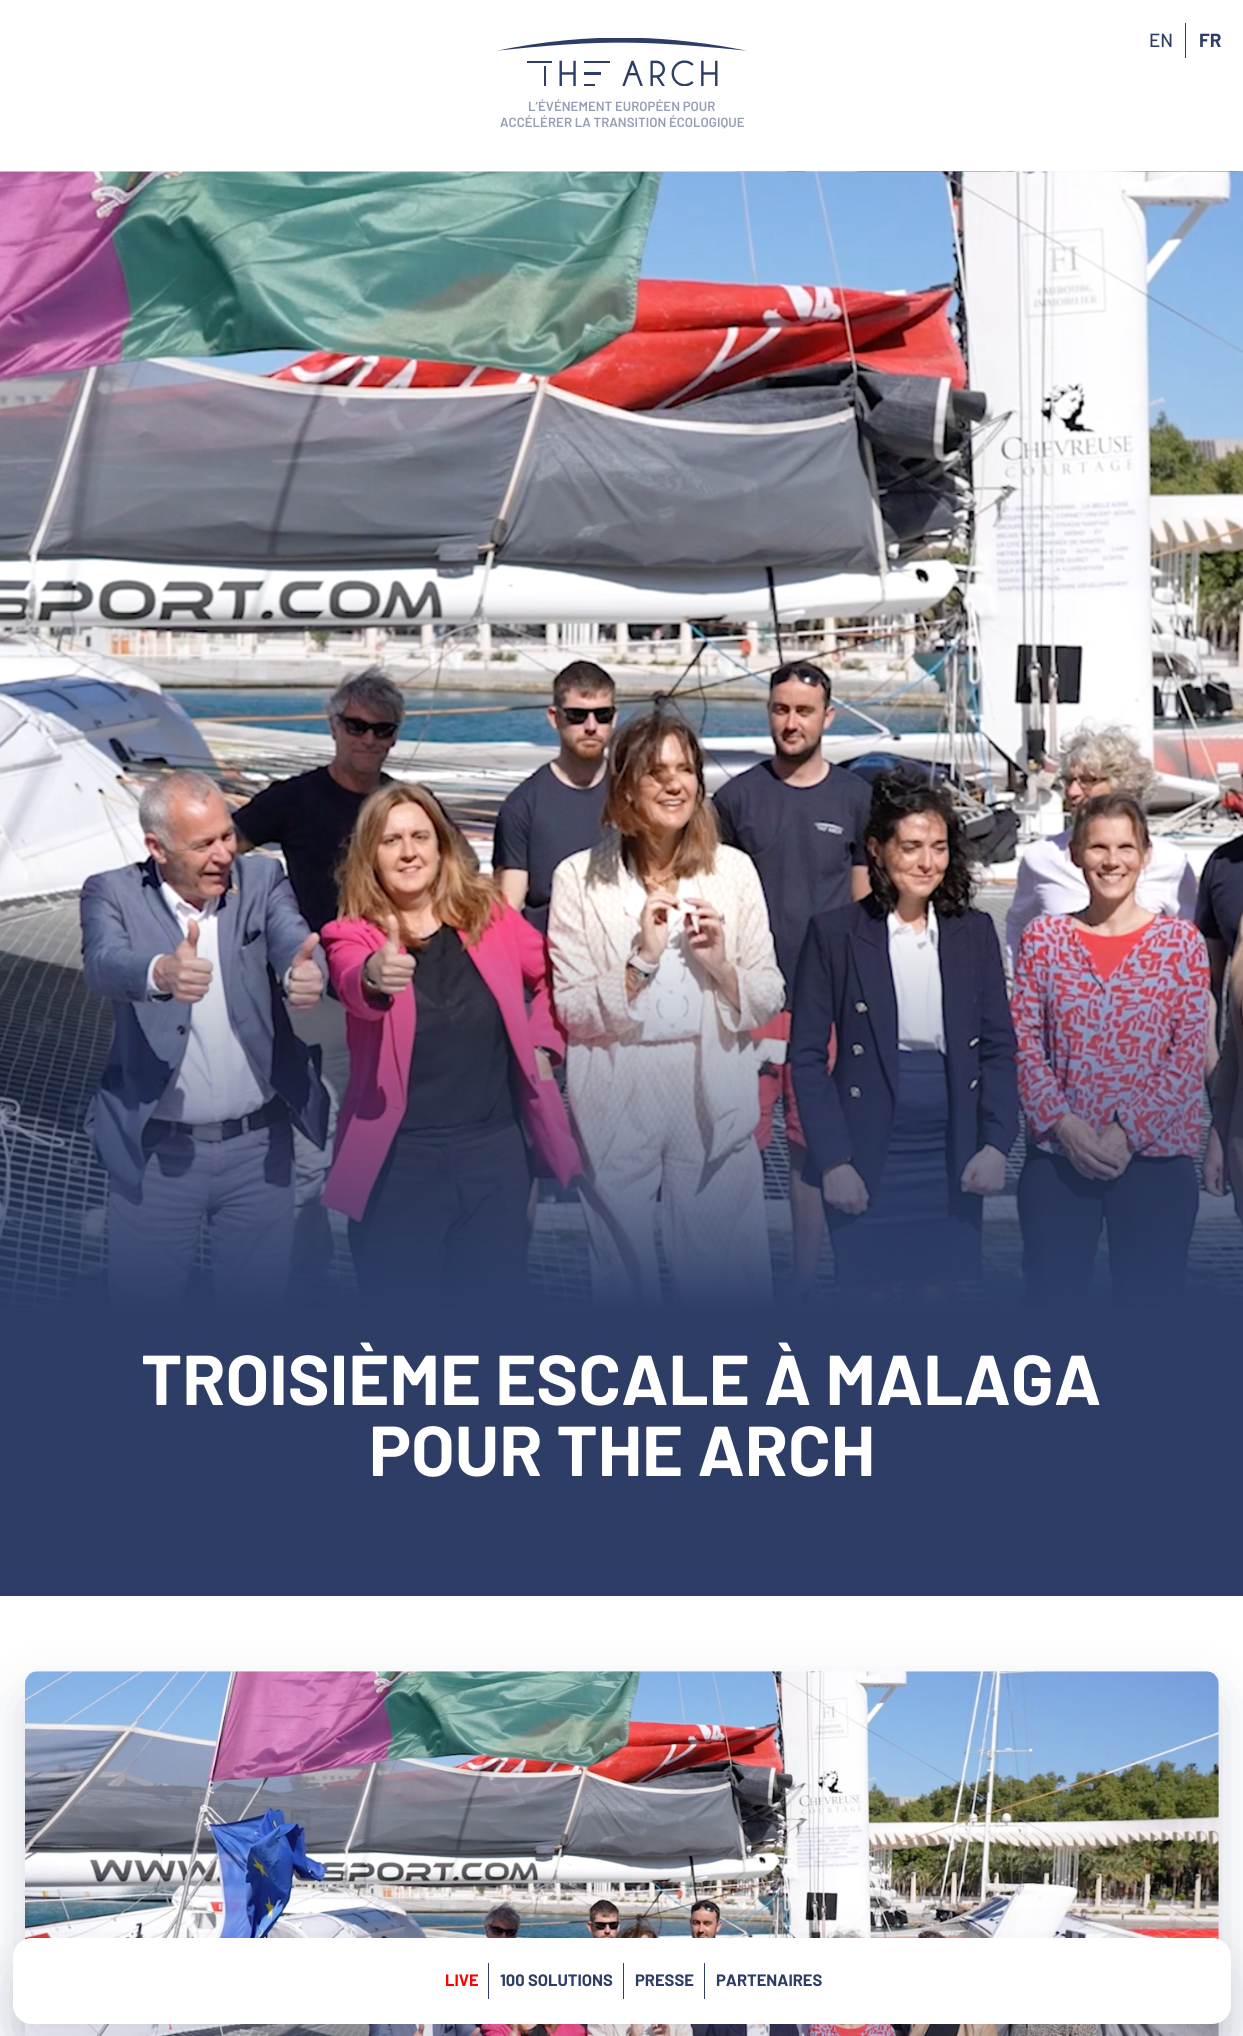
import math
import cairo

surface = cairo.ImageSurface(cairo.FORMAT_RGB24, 1243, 2036)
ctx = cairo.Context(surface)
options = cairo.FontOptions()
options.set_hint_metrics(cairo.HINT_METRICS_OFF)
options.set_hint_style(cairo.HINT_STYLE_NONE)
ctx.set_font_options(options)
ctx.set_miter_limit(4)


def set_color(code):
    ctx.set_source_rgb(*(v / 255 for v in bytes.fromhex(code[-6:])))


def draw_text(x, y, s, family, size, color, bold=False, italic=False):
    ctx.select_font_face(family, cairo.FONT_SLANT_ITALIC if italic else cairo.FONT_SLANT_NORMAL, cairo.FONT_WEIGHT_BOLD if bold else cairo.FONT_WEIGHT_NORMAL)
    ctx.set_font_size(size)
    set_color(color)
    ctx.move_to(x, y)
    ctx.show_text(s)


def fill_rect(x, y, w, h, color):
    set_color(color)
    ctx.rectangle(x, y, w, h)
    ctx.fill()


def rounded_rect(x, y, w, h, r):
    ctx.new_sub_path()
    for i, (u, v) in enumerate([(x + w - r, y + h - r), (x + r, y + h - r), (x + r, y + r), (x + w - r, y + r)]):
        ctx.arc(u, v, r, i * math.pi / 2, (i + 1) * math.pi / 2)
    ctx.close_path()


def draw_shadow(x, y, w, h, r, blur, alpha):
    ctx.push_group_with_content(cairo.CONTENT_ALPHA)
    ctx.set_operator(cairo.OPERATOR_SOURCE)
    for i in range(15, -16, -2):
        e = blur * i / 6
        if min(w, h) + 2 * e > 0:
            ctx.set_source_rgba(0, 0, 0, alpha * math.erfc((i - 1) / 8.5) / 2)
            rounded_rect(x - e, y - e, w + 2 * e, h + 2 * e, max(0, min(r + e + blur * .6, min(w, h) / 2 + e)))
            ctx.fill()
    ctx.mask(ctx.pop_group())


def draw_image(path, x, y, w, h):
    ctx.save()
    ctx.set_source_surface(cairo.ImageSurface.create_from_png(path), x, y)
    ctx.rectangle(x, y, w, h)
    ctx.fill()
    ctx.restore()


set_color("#ffffff")
ctx.paint()
fill_rect(1185, 23, 1, 35, "#2d3d66")
draw_text(1149, 47, "EN", "Barlow Medium", 19, "#2d3d66")
draw_text(1199, 47, "FR", "Barlow", 19, "#2d3d66", bold=True)
draw_image("assets/img1.png", 498, 38, 249, 48)
draw_text(528, 111, "L’ÉVÉNEMENT EUROPÉEN POUR", "Barlow SemiBold", 13.25, "#969eb3")
draw_text(500, 127, "ACCÉLÉRER LA TRANSITION ÉCOLOGIQUE", "Barlow SemiBold", 13.25, "#969eb3")
draw_image("assets/img2.png", 0, 171, 1243, 1138)
gradient = cairo.LinearGradient(622, 171, 622, 1596)
gradient.add_color_stop_rgba(0.52, 0.176, 0.239, 0.4, 0)
gradient.add_color_stop_rgba(0.8, 0.176, 0.239, 0.4, 1)
gradient.add_color_stop_rgba(1, 0.176, 0.239, 0.4, 1)
ctx.set_source(gradient)
ctx.rectangle(0, 921, 1243, 675)
ctx.fill()
draw_text(141, 1405, "TROISIÈME ESCALE À MALAGA", "Barlow", 70.5, "#ffffff", bold=True)
draw_text(369, 1476, "POUR THE ARCH", "Barlow", 70.5, "#ffffff", bold=True)
set_color("#2d3d66")
draw_shadow(25, 1695, 1194, 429, 13, 25, 0.2)
draw_image("assets/img3.png", 25, 1671, 1194, 365)
draw_shadow(13, 1961, 1218, 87, 19, 25, 0.2)
set_color("#ffffff")
rounded_rect(13, 1938, 1218, 86, 19)
ctx.fill()
fill_rect(488, 1963, 1, 36, "#2d3d66")
draw_text(445, 1986, "LIVE", "Barlow", 16.5, "#ff0000", bold=True)
fill_rect(623, 1963, 1, 36, "#2d3d66")
draw_text(500, 1986, "100 SOLUTIONS", "Barlow", 16.5, "#2d3d66", bold=True)
fill_rect(704, 1963, 1, 36, "#2d3d66")
draw_text(635, 1986, "PRESSE", "Barlow", 16.5, "#2d3d66", bold=True)
draw_text(716, 1986, "PARTENAIRES", "Barlow", 16.5, "#2d3d66", bold=True)
surface.write_to_png("output.png")
